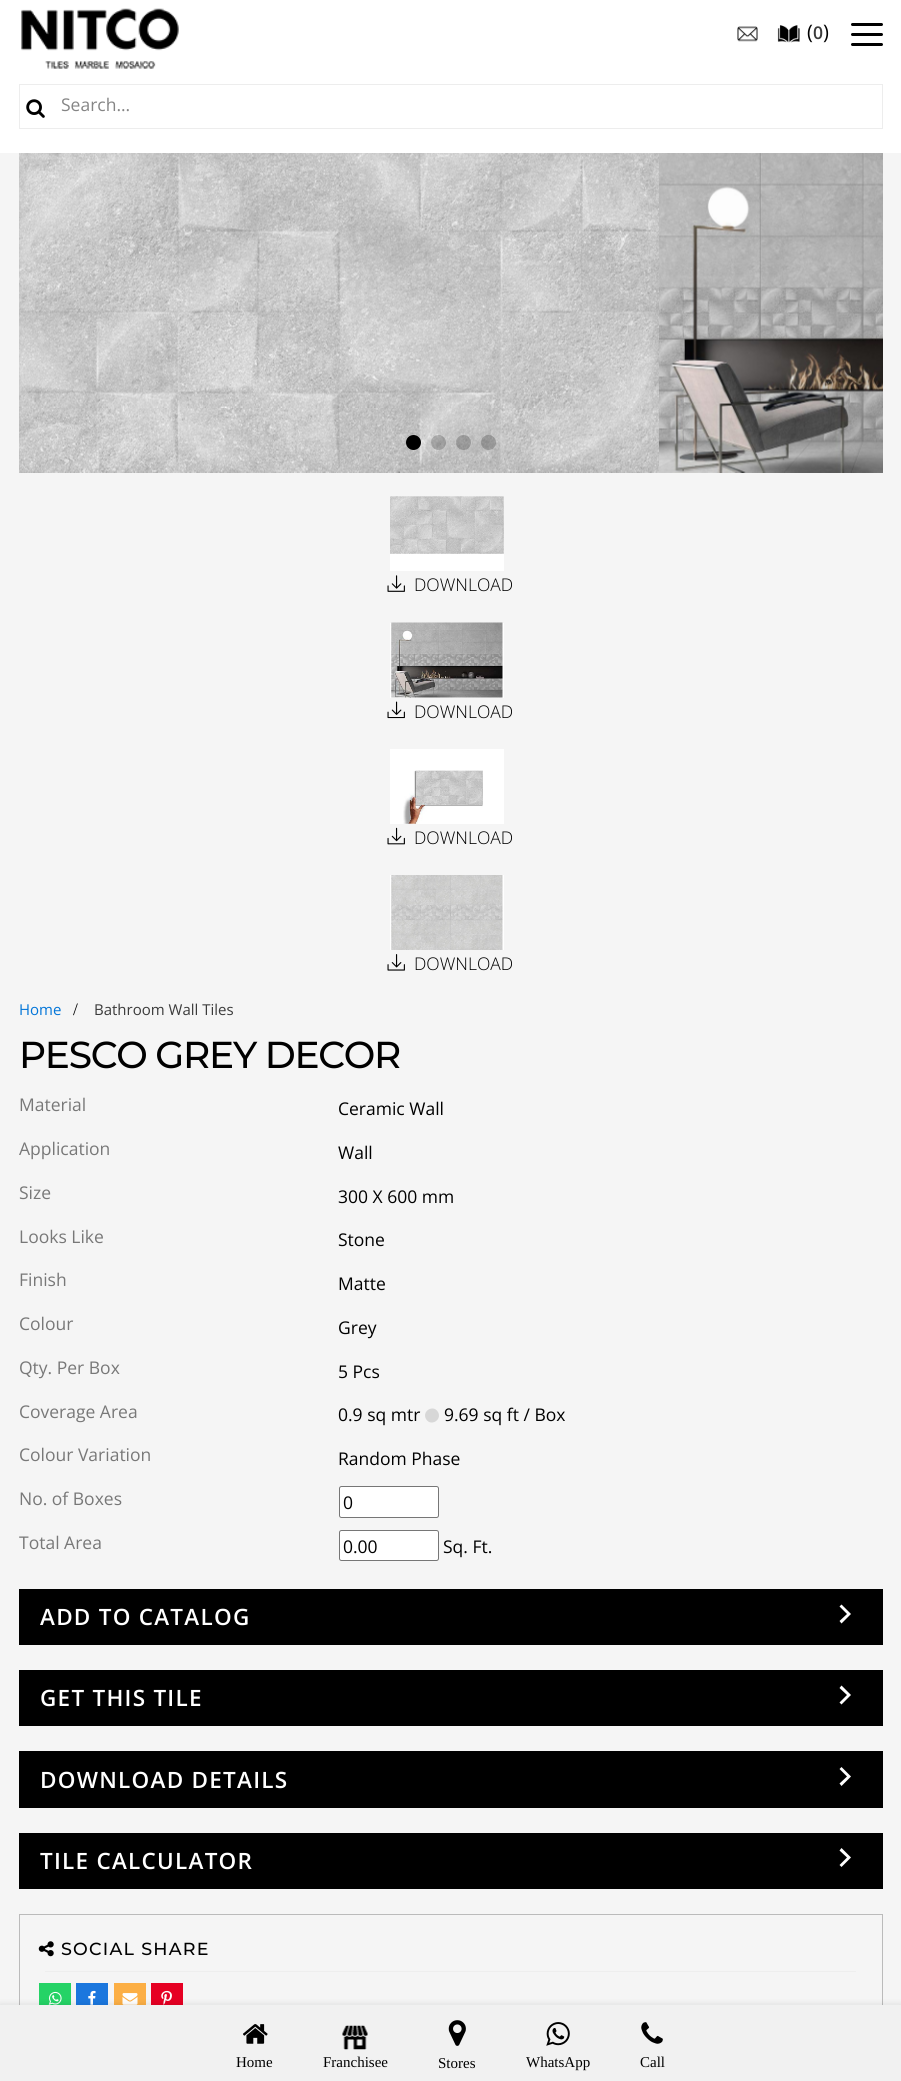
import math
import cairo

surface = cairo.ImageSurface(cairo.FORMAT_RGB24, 901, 2081)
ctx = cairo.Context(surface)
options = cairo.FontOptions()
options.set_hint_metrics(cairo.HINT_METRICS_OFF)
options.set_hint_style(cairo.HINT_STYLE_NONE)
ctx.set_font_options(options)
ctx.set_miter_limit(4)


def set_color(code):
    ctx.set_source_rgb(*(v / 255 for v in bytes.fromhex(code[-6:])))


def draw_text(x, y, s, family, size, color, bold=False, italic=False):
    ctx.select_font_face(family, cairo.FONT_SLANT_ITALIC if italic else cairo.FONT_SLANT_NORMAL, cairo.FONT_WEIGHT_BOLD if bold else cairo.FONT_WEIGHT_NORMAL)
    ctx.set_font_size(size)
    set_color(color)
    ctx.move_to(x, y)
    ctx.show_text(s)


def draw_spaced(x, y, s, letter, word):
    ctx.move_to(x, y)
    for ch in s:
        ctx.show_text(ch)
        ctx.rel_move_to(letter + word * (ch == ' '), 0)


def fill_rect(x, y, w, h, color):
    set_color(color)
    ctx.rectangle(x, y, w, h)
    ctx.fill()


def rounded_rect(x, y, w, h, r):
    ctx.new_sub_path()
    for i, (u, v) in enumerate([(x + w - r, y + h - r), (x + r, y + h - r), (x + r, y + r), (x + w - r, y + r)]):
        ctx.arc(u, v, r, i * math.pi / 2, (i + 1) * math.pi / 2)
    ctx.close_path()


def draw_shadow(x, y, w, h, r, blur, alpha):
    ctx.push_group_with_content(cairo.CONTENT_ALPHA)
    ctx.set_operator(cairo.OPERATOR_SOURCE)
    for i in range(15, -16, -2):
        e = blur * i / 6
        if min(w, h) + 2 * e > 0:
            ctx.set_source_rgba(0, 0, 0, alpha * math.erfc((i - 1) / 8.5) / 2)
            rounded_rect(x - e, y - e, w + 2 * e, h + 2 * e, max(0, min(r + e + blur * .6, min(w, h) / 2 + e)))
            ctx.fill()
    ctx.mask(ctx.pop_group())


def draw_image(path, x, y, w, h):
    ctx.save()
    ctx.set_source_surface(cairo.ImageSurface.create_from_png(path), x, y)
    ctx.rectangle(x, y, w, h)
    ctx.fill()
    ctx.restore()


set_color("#f5f5f5")
ctx.paint()
fill_rect(0, 0, 901, 153, "#ffffff")
draw_image("assets/img1.png", 21, 8, 158, 61)
draw_image("assets/img2.png", 737, 26, 21, 16)
draw_image("assets/img3.png", 777, 25, 23, 18)
draw_text(807, 39, "(", "Open Sans", 20, "#000000")
draw_text(813, 39, "0", "Open Sans SemiBold", 17.5, "#3b3b3b")
draw_text(823, 39, ")", "Open Sans", 20, "#000000")
rounded_rect(851, 23, 32, 3, 1.5)
ctx.fill()
rounded_rect(851, 33, 32, 3, 1.5)
ctx.fill()
rounded_rect(851, 43, 32, 3, 1.5)
ctx.fill()
ctx.rectangle(19.5, 84.5, 863, 44)
set_color("#ededed")
ctx.set_line_width(1)
ctx.stroke()
draw_image("assets/img4.png", 26, 99, 19, 19)
draw_text(61, 111, "Search...", "Open Sans", 17.5, "#858585")
draw_image("assets/img5.png", 19, 153, 640, 320)
draw_image("assets/img6.png", 659, 153, 224, 320)
set_color("#000000")
ctx.arc(413.5, 442.5, 7.5, 0, 2 * math.pi)
ctx.fill()
ctx.set_source_rgba(0, 0, 0, 0.2)
ctx.arc(438.5, 442.5, 7.5, 0, 2 * math.pi)
ctx.fill()
ctx.arc(463.5, 442.5, 7.5, 0, 2 * math.pi)
ctx.fill()
ctx.arc(488.5, 442.5, 7.5, 0, 2 * math.pi)
ctx.fill()
fill_rect(390, 496, 114, 75, "#ffffff")
draw_image("assets/img7.png", 390, 496, 114, 58)
draw_image("assets/img8.png", 387, 575, 18, 17)
draw_text(414, 591, "DOWNLOAD", "Open Sans Light", 17.5, "#000000")
fill_rect(390, 623, 114, 75, "#ffffff")
draw_image("assets/img9.png", 391, 622, 112, 76)
draw_image("assets/img10.png", 387, 701, 18, 18)
draw_text(414, 718, "DOWNLOAD", "Open Sans Light", 17.5, "#000000")
fill_rect(390, 749, 114, 75, "#ffffff")
draw_image("assets/img11.png", 403, 770, 80, 54)
draw_image("assets/img12.png", 387, 827, 18, 18)
draw_text(414, 844, "DOWNLOAD", "Open Sans Light", 17.5, "#000000")
fill_rect(390, 875, 114, 75, "#ffffff")
draw_image("assets/img13.png", 391, 875, 112, 75)
draw_image("assets/img14.png", 387, 954, 18, 17)
draw_text(414, 970, "DOWNLOAD", "Open Sans Light", 17.5, "#000000")
draw_text(19, 1015, "Home", "Open Sans", 15, "#0275d8")
draw_text(73, 1015, "/", "Liberation Serif", 17.5, "#000000")
draw_text(94, 1015, "Bathroom Wall Tiles", "Open Sans", 15, "#3b3b3b")
ctx.select_font_face("Montserrat Medium")
ctx.set_font_size(37.5)
set_color("#000000")
draw_spaced(19, 1068, "PESCO GREY DECOR", -1.25, 0)
draw_text(19, 1111, "Material", "Open Sans", 17.5, "#787878")
draw_text(338, 1115, "Ceramic Wall", "Open Sans", 17.5, "#000000")
draw_text(19, 1155, "Application", "Open Sans", 17.5, "#787878")
draw_text(338, 1159, "Wall", "Open Sans", 17.5, "#000000")
draw_text(19, 1199, "Size", "Open Sans", 17.5, "#787878")
draw_text(338, 1203, "300 X 600 mm", "Open Sans", 17.5, "#000000")
draw_text(19, 1243, "Looks Like", "Open Sans", 17.5, "#787878")
draw_text(338, 1246, "Stone", "Open Sans", 17.5, "#000000")
draw_text(19, 1286, "Finish", "Open Sans", 17.5, "#787878")
draw_text(338, 1290, "Matte", "Open Sans", 17.5, "#000000")
draw_text(19, 1330, "Colour", "Open Sans", 17.5, "#787878")
draw_text(338, 1334, "Grey", "Open Sans", 17.5, "#000000")
draw_text(19, 1374, "Qty. Per Box", "Open Sans", 17.5, "#787878")
draw_text(338, 1378, "5 Pcs", "Open Sans", 17.5, "#000000")
draw_text(19, 1418, "Coverage Area", "Open Sans", 17.5, "#787878")
draw_text(338, 1421, "0.9 sq mtr", "Open Sans", 17.5, "#000000")
set_color("#d7d7d7")
ctx.new_path()
ctx.move_to(438, 1412)
ctx.curve_to(442.5, 1420, 430.5, 1427, 426, 1419)
ctx.curve_to(421.5, 1411, 433.5, 1404, 438, 1412)
ctx.close_path()
ctx.fill()
draw_text(444, 1421, "9.69 sq ft / Box", "Open Sans", 17.5, "#000000")
draw_text(19, 1461, "Colour Variation", "Open Sans", 17.5, "#787878")
draw_text(338, 1465, "Random Phase", "Open Sans", 17.5, "#000000")
draw_text(19, 1505, "No. of Boxes", "Open Sans", 17.5, "#787878")
set_color("#ffffff")
rounded_rect(339.5, 1486.5, 99, 31, 2)
ctx.fill_preserve()
set_color("#767676")
ctx.stroke()
draw_text(343, 1509, "0", "Open Sans", 17.5, "#000000")
draw_text(19, 1549, "Total Area", "Open Sans", 17.5, "#787878")
set_color("#ffffff")
rounded_rect(339.5, 1530.5, 99, 30, 2)
ctx.fill_preserve()
set_color("#767676")
ctx.stroke()
draw_text(343, 1553, "0.00", "Open Sans", 17.5, "#000000")
draw_text(443, 1553, "Sq. Ft.", "Open Sans", 17.5, "#000000")
fill_rect(19, 1589, 864, 56, "#000000")
ctx.select_font_face("Open Sans SemiBold")
ctx.set_font_size(22.5)
set_color("#ffffff")
draw_spaced(40, 1625, "ADD TO CATALOG", 1.25, 0)
ctx.new_path()
ctx.move_to(839.5, 1606.5)
ctx.line_to(841.5, 1604.5)
ctx.line_to(851, 1614)
ctx.line_to(841.5, 1623.5)
ctx.line_to(839.5, 1621)
ctx.line_to(847, 1614)
ctx.close_path()
ctx.fill()
fill_rect(19, 1670, 864, 56, "#000000")
set_color("#ffffff")
draw_spaced(40, 1706, "GET THIS TILE", 1.25, 0)
ctx.new_path()
ctx.move_to(839.5, 1688)
ctx.line_to(841.5, 1685.5)
ctx.line_to(851, 1695)
ctx.line_to(841.5, 1704.5)
ctx.line_to(839.5, 1702.5)
ctx.line_to(847, 1695)
ctx.close_path()
ctx.fill()
fill_rect(19, 1751, 864, 57, "#000000")
set_color("#ffffff")
draw_spaced(40, 1788, "DOWNLOAD DETAILS", 1.25, 0)
ctx.new_path()
ctx.move_to(839.5, 1769)
ctx.line_to(841.5, 1767)
ctx.line_to(851, 1776.5)
ctx.line_to(841.5, 1786)
ctx.line_to(839.5, 1783.5)
ctx.line_to(847, 1776.5)
ctx.close_path()
ctx.fill()
fill_rect(19, 1833, 864, 56, "#000000")
set_color("#ffffff")
draw_spaced(40, 1869, "TILE CALCULATOR", 1.25, 0)
ctx.new_path()
ctx.move_to(839.5, 1850.5)
ctx.line_to(841.5, 1848)
ctx.line_to(851, 1857.5)
ctx.line_to(841.5, 1867)
ctx.line_to(839.5, 1865)
ctx.line_to(847, 1857.5)
ctx.close_path()
ctx.fill()
ctx.rectangle(19.5, 1914.5, 863, 115)
set_color("#bbbbbb")
ctx.stroke()
draw_image("assets/img15.png", 38, 1941, 16, 16)
ctx.select_font_face("Montserrat Medium")
ctx.set_font_size(17.5)
set_color("#000000")
draw_spaced(61, 1955, "SOCIAL SHARE", 1.25, 0)
fill_rect(45, 1971, 811, 1, "#eeeeee")
fill_rect(39, 1983, 32, 22, "#25d366")
draw_image("assets/img16.png", 48, 1991, 14, 14)
fill_rect(76, 1983, 32, 22, "#1b77de")
draw_image("assets/img17.png", 88, 1990, 8, 15)
fill_rect(114, 1983, 32, 22, "#fcaf45")
draw_image("assets/img18.png", 122, 1993, 16, 12)
fill_rect(151, 1983, 32, 22, "#e60023")
draw_image("assets/img19.png", 161, 1990, 11, 15)
set_color("#000000")
draw_shadow(0, 2004, 901, 76, 0, 3, 0.1)
fill_rect(0, 2005, 901, 76, "#f1f1f1")
draw_image("assets/img20.png", 243, 2024, 25, 20)
draw_text(236, 2067, "Home", "Liberation Serif", 15, "#000000")
draw_image("assets/img21.png", 342, 2025, 26, 25)
draw_text(323, 2067, "Franchisee", "Liberation Serif", 15, "#000000")
draw_image("assets/img22.png", 448, 2020, 18, 26)
draw_text(438, 2068, "Stores", "Liberation Serif", 15, "#000000")
draw_image("assets/img23.png", 546, 2022, 24, 24)
draw_text(526, 2067, "WhatsApp", "Liberation Serif", 15, "#000000")
draw_image("assets/img24.png", 641, 2022, 22, 22)
draw_text(640, 2067, "Call", "Liberation Serif", 15, "#000000")
surface.write_to_png("output.png")
